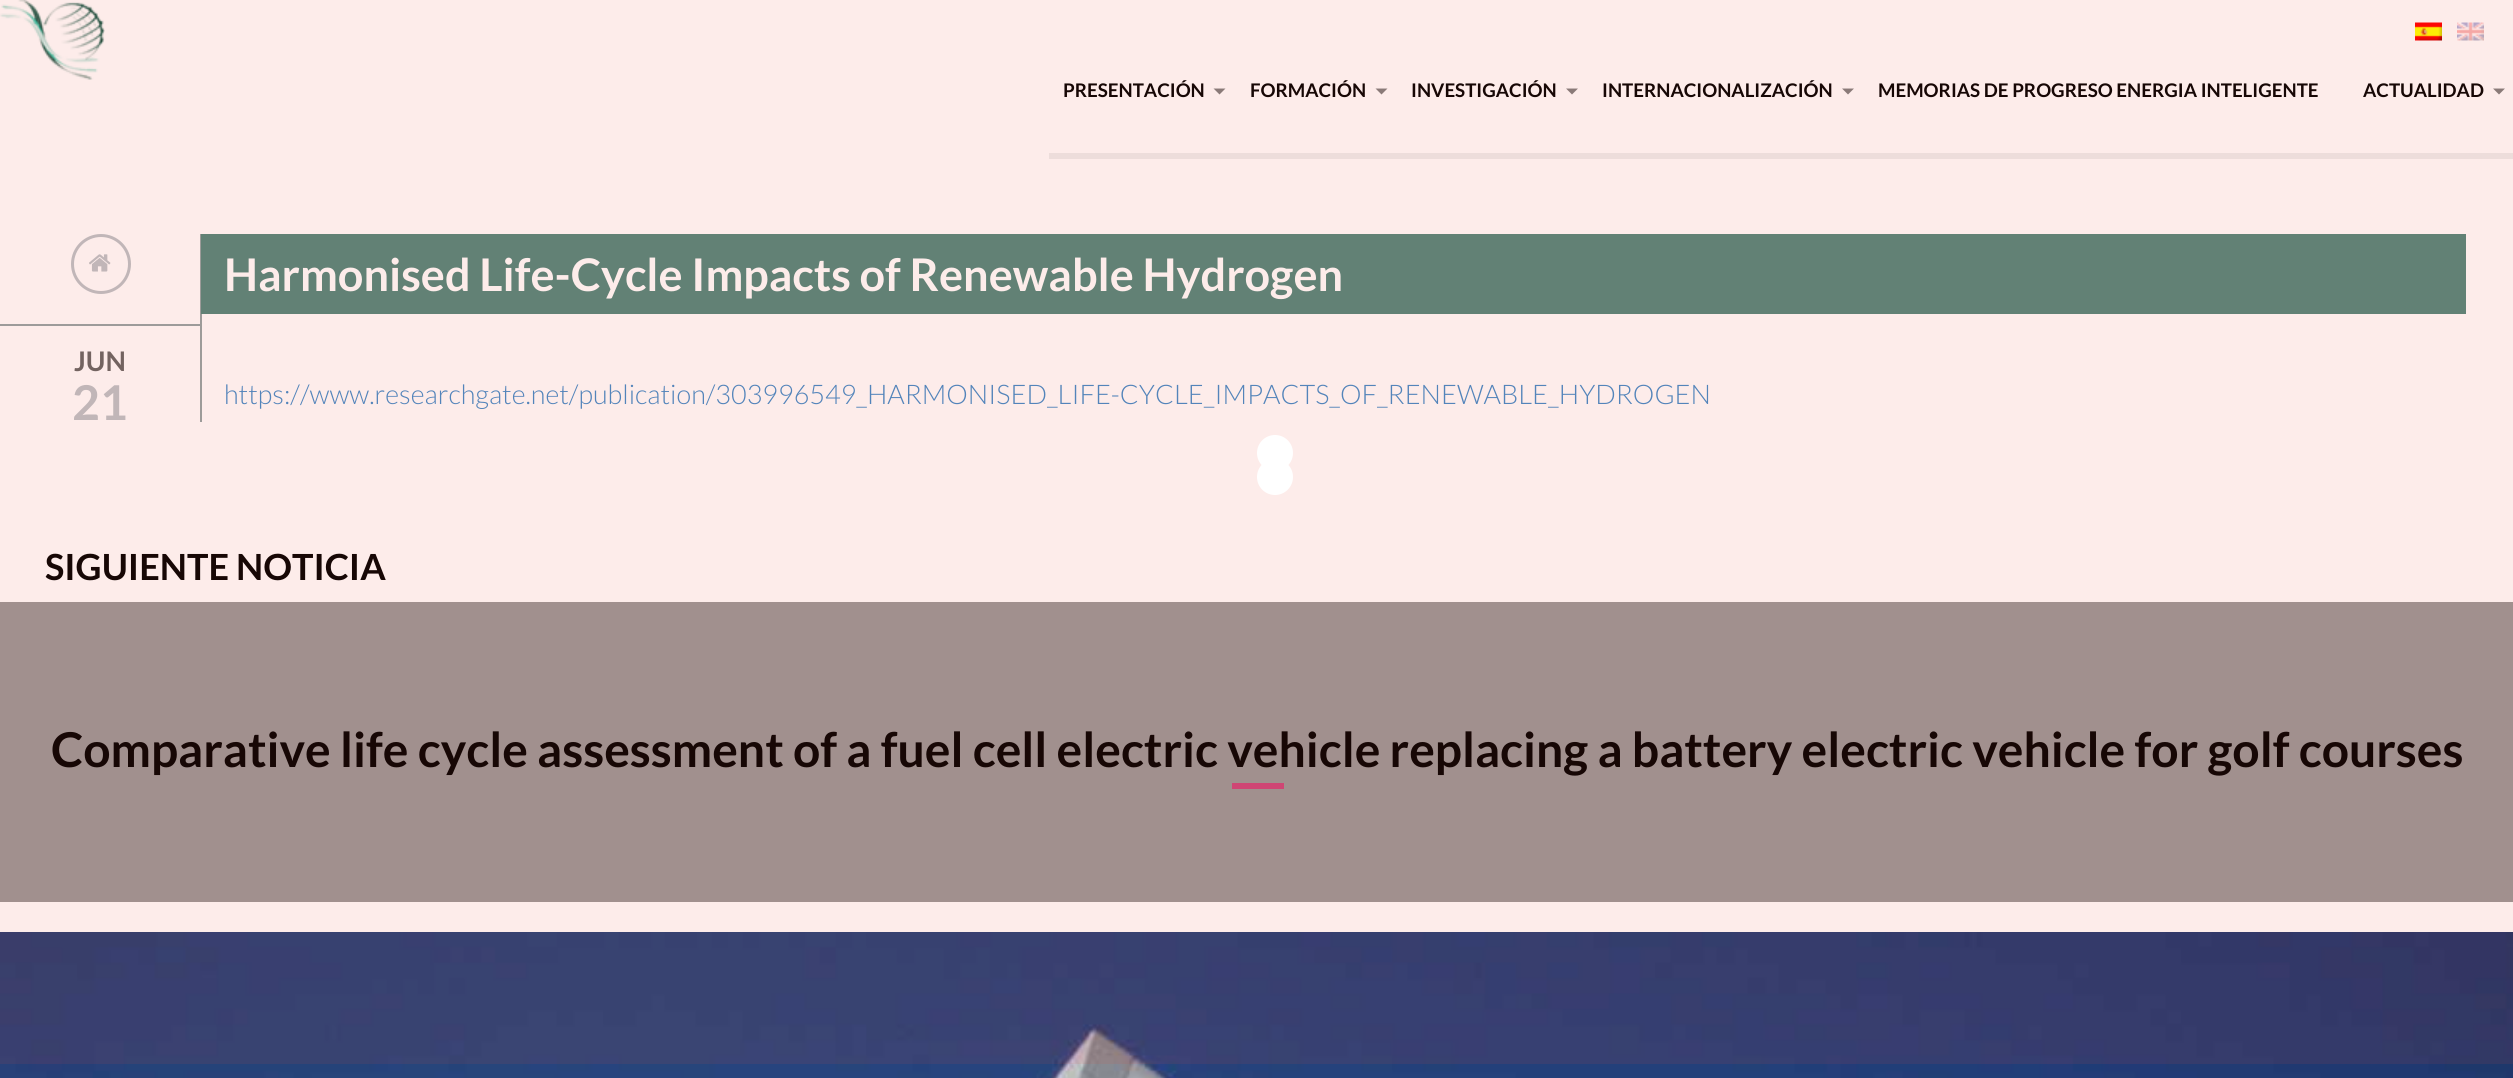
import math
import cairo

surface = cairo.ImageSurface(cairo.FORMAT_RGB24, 2513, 1078)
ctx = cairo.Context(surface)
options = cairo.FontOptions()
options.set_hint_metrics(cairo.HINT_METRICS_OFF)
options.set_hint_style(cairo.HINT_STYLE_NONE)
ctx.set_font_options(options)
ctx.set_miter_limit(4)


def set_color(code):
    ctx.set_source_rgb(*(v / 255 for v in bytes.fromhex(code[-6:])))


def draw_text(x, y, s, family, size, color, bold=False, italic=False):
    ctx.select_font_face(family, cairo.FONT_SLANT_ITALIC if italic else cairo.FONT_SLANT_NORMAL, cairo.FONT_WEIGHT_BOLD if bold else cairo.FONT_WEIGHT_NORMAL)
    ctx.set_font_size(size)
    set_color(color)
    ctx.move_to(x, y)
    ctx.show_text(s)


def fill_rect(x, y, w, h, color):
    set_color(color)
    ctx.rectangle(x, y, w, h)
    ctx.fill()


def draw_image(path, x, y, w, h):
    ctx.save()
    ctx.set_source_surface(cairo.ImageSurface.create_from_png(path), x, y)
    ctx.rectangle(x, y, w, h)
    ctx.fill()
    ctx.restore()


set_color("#fdecea")
ctx.paint()
draw_image("assets/img1.png", 0, 0, 105, 80)
draw_image("assets/img2.png", 2415, 22, 27, 19)
draw_image("assets/img3.png", 2457, 22, 27, 19)
fill_rect(1049, 153, 1464, 6, "#eddddb")
draw_text(1063, 97, "PRESENTACIÓN", "Lato", 18.75, "#170705", bold=True)
set_color("#8a7a78")
ctx.new_path()
ctx.move_to(1213.5, 88.5)
ctx.line_to(1225.5, 88.5)
ctx.line_to(1219.5, 94.5)
ctx.close_path()
ctx.fill()
draw_text(1250, 97, "FORMACIÓN", "Lato", 18.75, "#170705", bold=True)
set_color("#8a7a78")
ctx.new_path()
ctx.move_to(1375.5, 88.5)
ctx.line_to(1387.5, 88.5)
ctx.line_to(1381.5, 94.5)
ctx.close_path()
ctx.fill()
draw_text(1411, 97, "INVESTIGACIÓN", "Lato", 18.75, "#170705", bold=True)
set_color("#8a7a78")
ctx.new_path()
ctx.move_to(1566, 88.5)
ctx.line_to(1578, 88.5)
ctx.line_to(1572, 94.5)
ctx.close_path()
ctx.fill()
draw_text(1602, 97, "INTERNACIONALIZACIÓN", "Lato", 18.75, "#170705", bold=True)
set_color("#8a7a78")
ctx.new_path()
ctx.move_to(1842, 88.5)
ctx.line_to(1854, 88.5)
ctx.line_to(1848, 94.5)
ctx.close_path()
ctx.fill()
draw_text(1878, 97, "MEMORIAS DE PROGRESO ENERGIA INTELIGENTE", "Lato", 18.75, "#170705", bold=True)
draw_text(2363, 97, "ACTUALIDAD", "Lato", 18.75, "#170705", bold=True)
set_color("#8a7a78")
ctx.new_path()
ctx.move_to(2493, 88.5)
ctx.line_to(2505, 88.5)
ctx.line_to(2499, 94.5)
ctx.close_path()
ctx.fill()
fill_rect(200, 234, 2, 188, "#9d9b99")
ctx.arc(101, 264, 28.5, 0, 2 * math.pi)
set_color("#c1b6b8")
ctx.set_line_width(3)
ctx.stroke()
draw_image("assets/img4.png", 89, 254, 22, 18)
fill_rect(0, 324, 200, 2, "#9d9b9a")
draw_text(74, 371, "JUN", "Lato", 27, "#736360", bold=True)
draw_text(72, 420, "21", "Lato", 48, "#c1b6b8", bold=True)
fill_rect(201, 234, 2265, 80, "#628175")
draw_text(224, 291, "Harmonised Life-Cycle Impacts of Renewable Hydrogen", "Lato", 45, "#fdecea", bold=True)
draw_text(224, 404, "https://www.researchgate.net/publication/303996549_HARMONISED_LIFE-CYCLE_IMPACTS_OF_RENEWABLE_HYDROGEN", "Lato Light", 27, "#5384ba")
set_color("#ffffff")
ctx.new_path()
ctx.arc(1275, 453, 18, 0, 2 * math.pi)
ctx.fill()
ctx.arc(1275, 477, 18, 0, 2 * math.pi)
ctx.fill()
draw_text(45, 580, "SIGUIENTE NOTICIA", "Lato", 36, "#170705", bold=True)
fill_rect(0, 602, 2513, 300, "#a1908e")
draw_text(51, 767, "Comparative life cycle assessment of a fuel cell electric vehicle replacing a battery electric vehicle for golf courses", "Lato", 48, "#170705", bold=True)
fill_rect(1232, 783, 52, 6, "#cf4674")
draw_image("assets/img5.png", 0, 932, 2513, 146)
surface.write_to_png("output.png")
